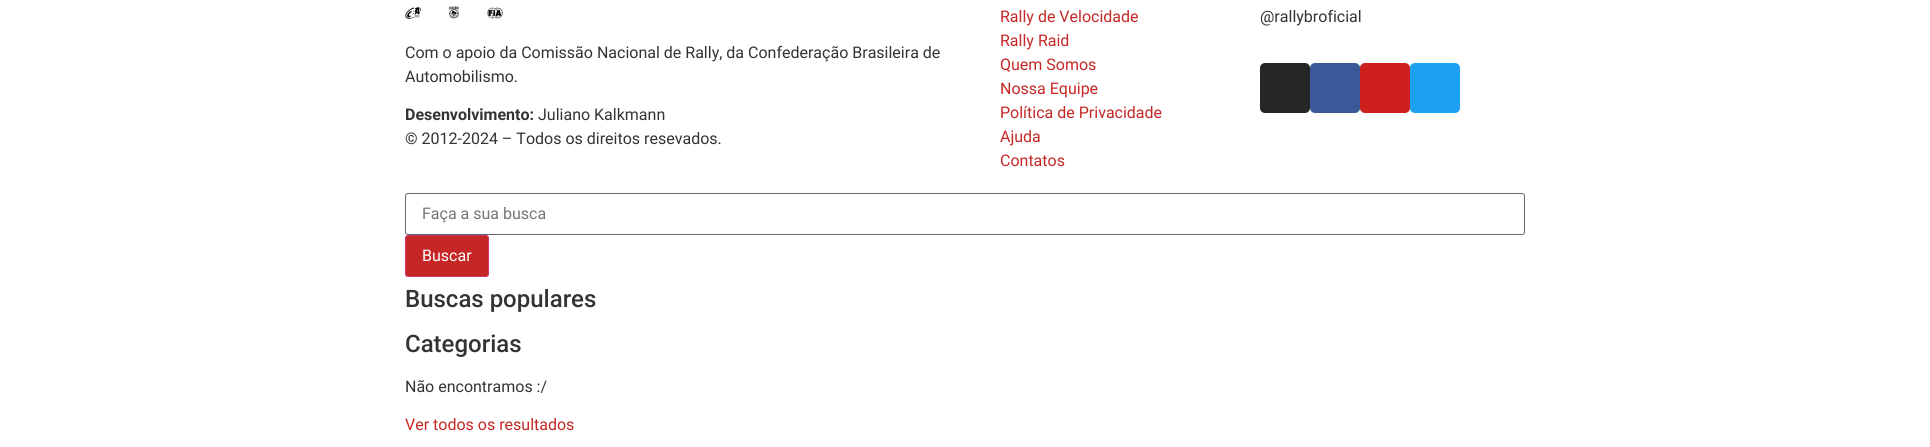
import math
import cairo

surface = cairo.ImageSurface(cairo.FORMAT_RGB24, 1930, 447)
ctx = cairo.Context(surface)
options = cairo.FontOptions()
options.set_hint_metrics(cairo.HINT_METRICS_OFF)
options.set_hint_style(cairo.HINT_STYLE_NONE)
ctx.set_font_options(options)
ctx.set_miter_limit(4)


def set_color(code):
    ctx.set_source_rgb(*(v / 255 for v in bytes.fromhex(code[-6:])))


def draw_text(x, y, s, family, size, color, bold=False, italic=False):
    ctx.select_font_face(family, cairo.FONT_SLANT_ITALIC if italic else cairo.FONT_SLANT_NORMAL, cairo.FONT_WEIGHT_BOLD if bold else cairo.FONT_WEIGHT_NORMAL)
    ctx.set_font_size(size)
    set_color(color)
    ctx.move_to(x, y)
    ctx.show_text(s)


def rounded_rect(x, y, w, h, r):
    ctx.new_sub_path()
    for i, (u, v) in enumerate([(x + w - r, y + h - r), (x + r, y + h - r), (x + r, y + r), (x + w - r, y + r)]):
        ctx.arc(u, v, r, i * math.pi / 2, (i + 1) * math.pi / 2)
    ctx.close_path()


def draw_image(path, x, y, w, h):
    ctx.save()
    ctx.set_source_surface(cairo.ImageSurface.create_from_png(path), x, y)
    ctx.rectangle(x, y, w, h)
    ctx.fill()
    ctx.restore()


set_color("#ffffff")
ctx.paint()
draw_image("assets/img1.png", 405, 7, 16, 12)
draw_image("assets/img2.png", 449, 6, 10, 13)
draw_image("assets/img3.png", 487, 7, 16, 12)
draw_text(405, 58, "Com o apoio da Comissão Nacional de Rally, da Confederação Brasileira de", "Roboto", 16, "#333333")
draw_text(405, 82, "Automobilismo.", "Roboto", 16, "#333333")
draw_text(405, 120, "Desenvolvimento:", "Roboto", 16, "#333333", bold=True)
draw_text(538, 120, "Juliano Kalkmann", "Roboto", 16, "#333333")
draw_text(405, 144, "© 2012-2024 – Todos os direitos resevados.", "Roboto", 16, "#333333")
draw_text(1000, 22, "Rally de Velocidade", "Roboto", 16, "#c52726")
draw_text(1000, 46, "Rally Raid", "Roboto", 16, "#c52726")
draw_text(1000, 70, "Quem Somos", "Roboto", 16, "#c52726")
draw_text(1000, 94, "Nossa Equipe", "Roboto", 16, "#c52726")
draw_text(1000, 118, "Política de Privacidade", "Roboto", 16, "#c52726")
draw_text(1000, 142, "Ajuda", "Roboto", 16, "#c52726")
draw_text(1000, 166, "Contatos", "Roboto", 16, "#c52726")
draw_text(1260, 22, "@rallybroficial", "Roboto", 16, "#333333")
set_color("#262626")
rounded_rect(1260, 63, 50, 50, 5)
ctx.fill()
set_color("#3b5998")
rounded_rect(1310, 63, 50, 50, 5)
ctx.fill()
set_color("#cd201f")
rounded_rect(1360, 63, 50, 50, 5)
ctx.fill()
set_color("#1da1f2")
rounded_rect(1410, 63, 50, 50, 5)
ctx.fill()
rounded_rect(405.5, 193.5, 1119, 41, 2.5)
set_color("#666666")
ctx.set_line_width(1)
ctx.stroke()
draw_text(422, 219, "Faça a sua busca", "Roboto", 16, "#757575")
set_color("#c52726")
rounded_rect(405.5, 235.5, 83, 41, 2.5)
ctx.fill_preserve()
set_color("#cc3366")
ctx.stroke()
draw_text(422, 261, "Buscar", "Roboto", 16, "#ffffff")
draw_text(405, 307, "Buscas populares", "Roboto Medium", 24, "#333333")
draw_text(405, 352, "Categorias", "Roboto Medium", 24, "#333333")
draw_text(405, 392, "Não encontramos :/", "Roboto", 16, "#333333")
draw_text(405, 430, "Ver todos os resultados", "Roboto", 16, "#c52726")
surface.write_to_png("output.png")
